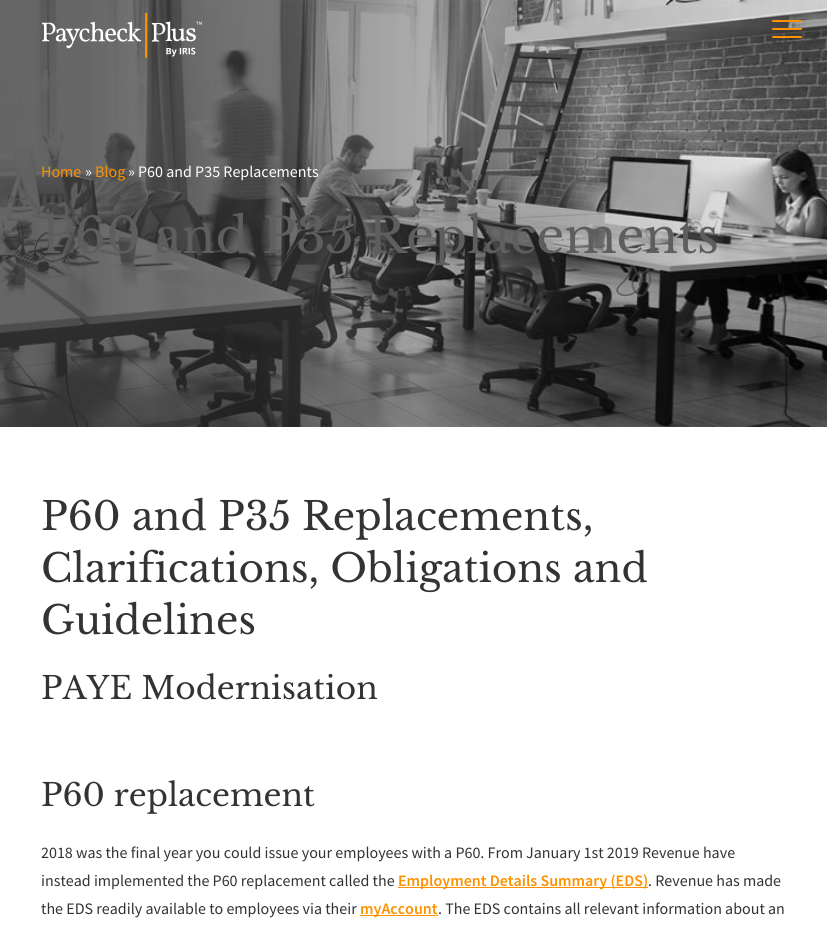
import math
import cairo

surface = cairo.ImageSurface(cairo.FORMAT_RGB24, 827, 925)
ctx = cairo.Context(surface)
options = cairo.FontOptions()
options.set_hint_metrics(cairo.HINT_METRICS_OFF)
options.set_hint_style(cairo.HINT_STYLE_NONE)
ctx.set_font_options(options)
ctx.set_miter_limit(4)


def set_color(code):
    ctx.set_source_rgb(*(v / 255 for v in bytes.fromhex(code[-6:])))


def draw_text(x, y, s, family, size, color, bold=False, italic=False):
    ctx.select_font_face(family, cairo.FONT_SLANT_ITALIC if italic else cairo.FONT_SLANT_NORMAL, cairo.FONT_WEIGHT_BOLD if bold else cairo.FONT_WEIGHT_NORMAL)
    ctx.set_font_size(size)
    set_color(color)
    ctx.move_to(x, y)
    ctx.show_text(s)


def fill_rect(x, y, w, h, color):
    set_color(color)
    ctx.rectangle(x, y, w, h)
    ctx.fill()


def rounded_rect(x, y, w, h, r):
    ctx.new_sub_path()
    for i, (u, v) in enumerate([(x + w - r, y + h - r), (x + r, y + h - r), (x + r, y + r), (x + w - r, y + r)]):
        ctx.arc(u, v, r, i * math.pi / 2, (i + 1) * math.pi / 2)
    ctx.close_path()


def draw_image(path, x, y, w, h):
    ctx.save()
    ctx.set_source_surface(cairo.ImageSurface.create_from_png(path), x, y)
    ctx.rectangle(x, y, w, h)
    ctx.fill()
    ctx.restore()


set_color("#ffffff")
ctx.paint()
fill_rect(0, 0, 821, 427, "#333333")
draw_image("assets/img2.png", 0, 0, 827, 427)
draw_image("assets/img1.png", 42, 12, 160, 46)
set_color("#fd9201")
rounded_rect(772, 28, 30, 2, 1)
ctx.fill()
rounded_rect(772, 20, 30, 2, 1)
ctx.fill()
rounded_rect(772, 36, 30, 2, 1)
ctx.fill()
draw_text(41, 177, "Home", "Source Sans Pro", 16, "#fd9201")
draw_text(85, 177, "»", "Source Sans Pro", 16, "#ffffff")
draw_text(95, 177, "Blog", "Source Sans Pro", 16, "#fd9201")
draw_text(128, 177, "» P60 and P35 Replacements", "Source Sans Pro", 16, "#ffffff")
draw_text(41, 253, "P60 and P35 Replacements", "Libre Baskerville", 48.8, "#5e5e5e")
draw_text(41, 530, "P60 and P35 Replacements,", "Libre Baskerville", 39, "#333333")
draw_text(41, 582, "Clarifications, Obligations and", "Libre Baskerville", 39, "#333333")
draw_text(41, 634, "Guidelines", "Libre Baskerville", 39, "#333333")
draw_text(41, 699, "PAYE Modernisation", "Libre Baskerville", 31.25, "#333333")
draw_text(41, 806, "P60 replacement", "Libre Baskerville", 31.25, "#333333")
draw_text(41, 858, "2018 was the final year you could issue your employees with a P60. From January 1st 2019 Revenue have", "Source Sans Pro", 16, "#333333")
draw_text(41, 886, "instead implemented the P60 replacement called the", "Source Sans Pro", 16, "#333333")
fill_rect(398, 887, 250, 1, "#fd9201")
draw_text(398, 886, "Employment Details Summary (EDS)", "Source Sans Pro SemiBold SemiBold", 16, "#fd9201")
draw_text(648, 886, ". Revenue has made", "Source Sans Pro", 16, "#333333")
draw_text(41, 914, "the EDS readily available to employees via their", "Source Sans Pro", 16, "#333333")
fill_rect(360, 915, 78, 1, "#fd9201")
draw_text(360, 914, "myAccount", "Source Sans Pro SemiBold SemiBold", 16, "#fd9201")
draw_text(438, 914, ". The EDS contains all relevant information about an", "Source Sans Pro", 16, "#333333")
surface.write_to_png("output.png")
